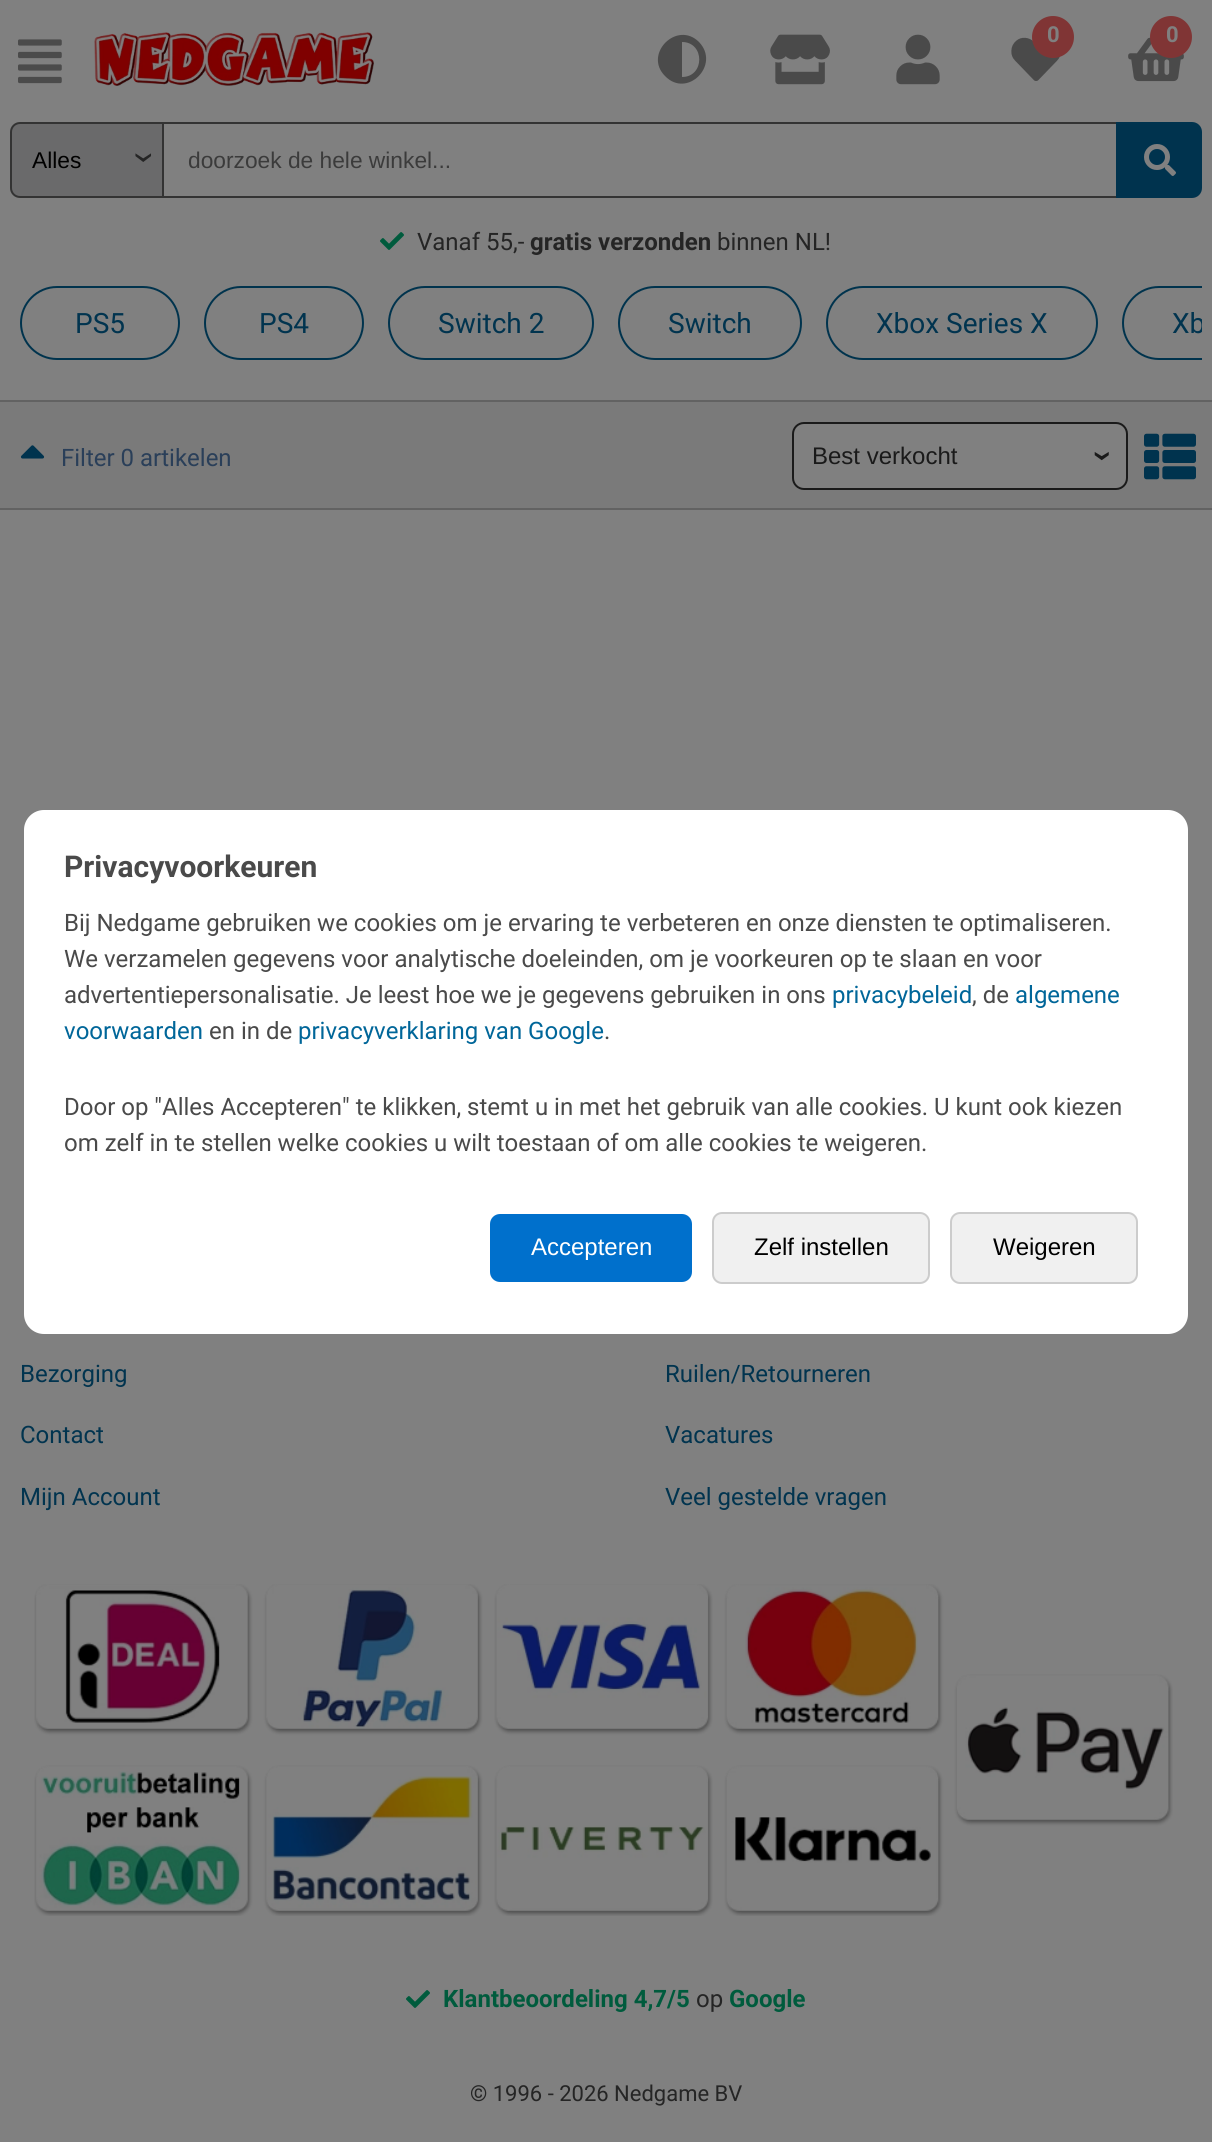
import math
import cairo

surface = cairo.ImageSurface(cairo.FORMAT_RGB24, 1212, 2142)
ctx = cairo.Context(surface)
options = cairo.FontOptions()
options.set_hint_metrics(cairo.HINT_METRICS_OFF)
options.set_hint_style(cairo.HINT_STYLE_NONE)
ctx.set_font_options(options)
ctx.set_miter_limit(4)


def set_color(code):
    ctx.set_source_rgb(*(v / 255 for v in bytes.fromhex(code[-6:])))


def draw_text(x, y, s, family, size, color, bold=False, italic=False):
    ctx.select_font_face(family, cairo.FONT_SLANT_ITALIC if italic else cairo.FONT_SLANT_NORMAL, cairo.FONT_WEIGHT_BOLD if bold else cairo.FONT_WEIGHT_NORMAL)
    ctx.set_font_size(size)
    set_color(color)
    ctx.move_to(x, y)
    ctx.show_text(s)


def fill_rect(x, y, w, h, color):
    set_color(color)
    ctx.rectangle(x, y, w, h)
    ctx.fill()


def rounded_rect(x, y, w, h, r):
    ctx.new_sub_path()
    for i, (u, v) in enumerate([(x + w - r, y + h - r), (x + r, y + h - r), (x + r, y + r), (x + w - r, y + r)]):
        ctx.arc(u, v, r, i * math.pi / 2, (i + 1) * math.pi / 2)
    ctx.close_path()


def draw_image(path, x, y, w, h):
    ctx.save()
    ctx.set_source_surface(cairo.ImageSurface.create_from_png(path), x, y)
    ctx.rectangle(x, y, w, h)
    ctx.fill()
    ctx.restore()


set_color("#808080")
ctx.paint()
draw_image("assets/img1.png", 18, 39, 44, 45)
draw_image("assets/img2.png", 94, 32, 280, 54)
set_color("#4b4b4b")
ctx.new_path()
ctx.move_to(665, 76)
ctx.curve_to(643, 54, 677, 20, 699, 42)
ctx.curve_to(721, 65, 687, 99, 665, 76)
ctx.close_path()
ctx.move_to(682, 77)
ctx.curve_to(705, 77, 705, 42, 682, 42)
ctx.close_path()
ctx.fill()
draw_image("assets/img3.png", 770, 34, 60, 51)
draw_image("assets/img4.png", 896, 34, 44, 51)
draw_image("assets/img5.png", 1011, 37, 49, 44)
set_color("#803535")
ctx.arc(1053, 37, 21, 0, 2 * math.pi)
ctx.fill()
draw_text(1047, 42, "0", "Roboto", 22, "#808080", bold=True)
draw_image("assets/img6.png", 1128, 37, 56, 45)
set_color("#803535")
ctx.arc(1171, 37, 21, 0, 2 * math.pi)
ctx.fill()
draw_text(1166, 42, "0", "Roboto", 22, "#808080", bold=True)
set_color("#6a6a6b")
ctx.new_path()
ctx.move_to(20, 123)
ctx.line_to(163, 123)
ctx.line_to(163, 197)
ctx.line_to(20, 197)
ctx.curve_to(15, 197, 11, 193, 11, 188)
ctx.line_to(11, 132)
ctx.curve_to(11, 127, 15, 123, 20, 123)
ctx.close_path()
ctx.fill_preserve()
set_color("#333333")
ctx.stroke()
draw_text(32, 168, "Alles", "Liberation Sans", 22.75, "#000000")
ctx.save()
ctx.translate(154, 164)
ctx.rotate(-90 * math.pi / 180)
draw_text(0, 0, "‹", "Roboto", 40, "#252525")
ctx.restore()
fill_rect(164, 122, 952, 2, "#333333")
fill_rect(164, 196, 952, 2, "#333333")
draw_text(188, 168, "doorzoek de hele winkel...", "Liberation Sans", 22.75, "#3b3b3b")
set_color("#00334e")
ctx.new_path()
ctx.move_to(1117, 123)
ctx.line_to(1192, 123)
ctx.curve_to(1197, 123, 1201, 127, 1201, 132)
ctx.line_to(1201, 188)
ctx.curve_to(1201, 193, 1197, 197, 1192, 197)
ctx.line_to(1117, 197)
ctx.close_path()
ctx.fill_preserve()
ctx.stroke()
draw_image("assets/img7.png", 1144, 144, 32, 32)
draw_image("assets/img8.png", 380, 232, 24, 18)
draw_text(417, 250, "Vanaf 55,-", "Roboto", 24, "#252525")
draw_text(530, 250, "gratis verzonden", "Roboto", 24, "#252525", bold=True)
draw_text(717, 250, "binnen NL!", "Roboto", 24, "#252525")
rounded_rect(21, 287, 158, 72, 36)
set_color("#00334d")
ctx.stroke()
draw_text(75, 333, "PS5", "Roboto", 28, "#01344f")
rounded_rect(205, 287, 158, 72, 36)
set_color("#00334d")
ctx.stroke()
draw_text(259, 333, "PS4", "Roboto", 28, "#01344f")
rounded_rect(389, 287, 204, 72, 36)
set_color("#00334d")
ctx.stroke()
draw_text(438, 333, "Switch 2", "Roboto", 28, "#01344f")
rounded_rect(619, 287, 182, 72, 36)
set_color("#00334d")
ctx.stroke()
draw_text(668, 333, "Switch", "Roboto", 28, "#01344f")
rounded_rect(827, 287, 270, 72, 36)
set_color("#00334d")
ctx.stroke()
draw_text(876, 333, "Xbox Series X", "Roboto", 28, "#01344f")
ctx.save()
ctx.rectangle(10, 286, 1192, 74)
ctx.clip()
rounded_rect(1123, 287, 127, 72, 36)
set_color("#00334d")
ctx.stroke()
draw_text(1172, 333, "Xb", "Roboto", 28, "#01344f")
ctx.restore()
fill_rect(0, 402, 1212, 106, "#7a7a7a")
fill_rect(0, 400, 1212, 2, "#626262")
fill_rect(0, 508, 1212, 2, "#626262")
draw_image("assets/img9.png", 20, 445, 25, 14)
draw_text(61, 466, "Filter 0 artikelen", "Roboto", 24, "#2a3f59")
set_color("#808080")
rounded_rect(793, 423, 334, 66, 11)
ctx.fill_preserve()
set_color("#1a1a1a")
ctx.stroke()
draw_text(812, 464, "Best verkocht", "Liberation Sans", 24, "#1a1a1a")
ctx.save()
ctx.translate(1111, 462)
ctx.rotate(-90 * math.pi / 180)
draw_text(0, 0, "‹", "Roboto", 36, "#1a1a1a", bold=True)
ctx.restore()
draw_image("assets/img10.png", 1144, 433, 52, 47)
draw_text(20, 1382, "Bezorging", "Roboto", 24, "#01344f")
draw_text(665, 1382, "Ruilen/Retourneren", "Roboto", 24, "#01344f")
draw_text(20, 1443, "Contact", "Roboto", 24, "#01344f")
draw_text(665, 1443, "Vacatures", "Roboto", 24, "#01344f")
draw_text(20, 1505, "Mijn Account", "Roboto", 24, "#01344f")
draw_text(665, 1505, "Veel gestelde vragen", "Roboto", 24, "#01344f")
draw_image("assets/img11.png", 34, 1584, 1139, 332)
draw_image("assets/img8.png", 406, 1990, 24, 18)
draw_text(443, 2007, "Klantbeoordeling 4,7/5", "Roboto", 24, "#005b3d", bold=True)
draw_text(696, 2007, "op", "Roboto", 24, "#252525")
draw_text(729, 2007, "Google", "Roboto", 24, "#005b3d", bold=True)
draw_text(470, 2101, "© 1996 - 2026 Nedgame BV", "Roboto", 22, "#252525")
set_color("#ffffff")
rounded_rect(24, 810, 1164, 524, 20)
ctx.fill()
draw_text(64, 877, "Privacyvoorkeuren", "Roboto", 30, "#4a4a4a", bold=True)
draw_text(64, 931, "Bij Nedgame gebruiken we cookies om je ervaring te verbeteren en onze diensten te optimaliseren.", "Roboto", 24, "#4a4a4a")
draw_text(64, 967, "We verzamelen gegevens voor analytische doeleinden, om je voorkeuren op te slaan en voor", "Roboto", 24, "#4a4a4a")
draw_text(64, 1003, "advertentiepersonalisatie. Je leest hoe we je gegevens gebruiken in ons", "Roboto", 24, "#4a4a4a")
draw_text(832, 1003, "privacybeleid", "Roboto", 24, "#006699")
draw_text(972, 1003, ", de", "Roboto", 24, "#4a4a4a")
draw_text(1015, 1003, "algemene", "Roboto", 24, "#006699")
draw_text(64, 1039, "voorwaarden", "Roboto", 24, "#006699")
draw_text(209, 1039, "en in de", "Roboto", 24, "#4a4a4a")
draw_text(298, 1039, "privacyverklaring van Google", "Roboto", 24, "#006699")
draw_text(604, 1039, ".", "Roboto", 24, "#4a4a4a")
draw_text(64, 1115, "Door op \"Alles Accepteren\" te klikken, stemt u in met het gebruik van alle cookies. U kunt ook kiezen", "Roboto", 24, "#4a4a4a")
draw_text(64, 1151, "om zelf in te stellen welke cookies u wilt toestaan of om alle cookies te weigeren.", "Roboto", 24, "#4a4a4a")
set_color("#0070cc")
rounded_rect(490, 1214, 202, 68, 10)
ctx.fill()
draw_text(531, 1255, "Accepteren", "Liberation Sans", 24, "#ffffff")
set_color("#f0f0f0")
rounded_rect(713, 1213, 216, 70, 9)
ctx.fill_preserve()
set_color("#cccccc")
ctx.stroke()
draw_text(754, 1255, "Zelf instellen", "Liberation Sans", 24, "#000000")
set_color("#f0f0f0")
rounded_rect(951, 1213, 186, 70, 9)
ctx.fill_preserve()
set_color("#cccccc")
ctx.stroke()
draw_text(993, 1255, "Weigeren", "Liberation Sans", 24, "#000000")
surface.write_to_png("output.png")
